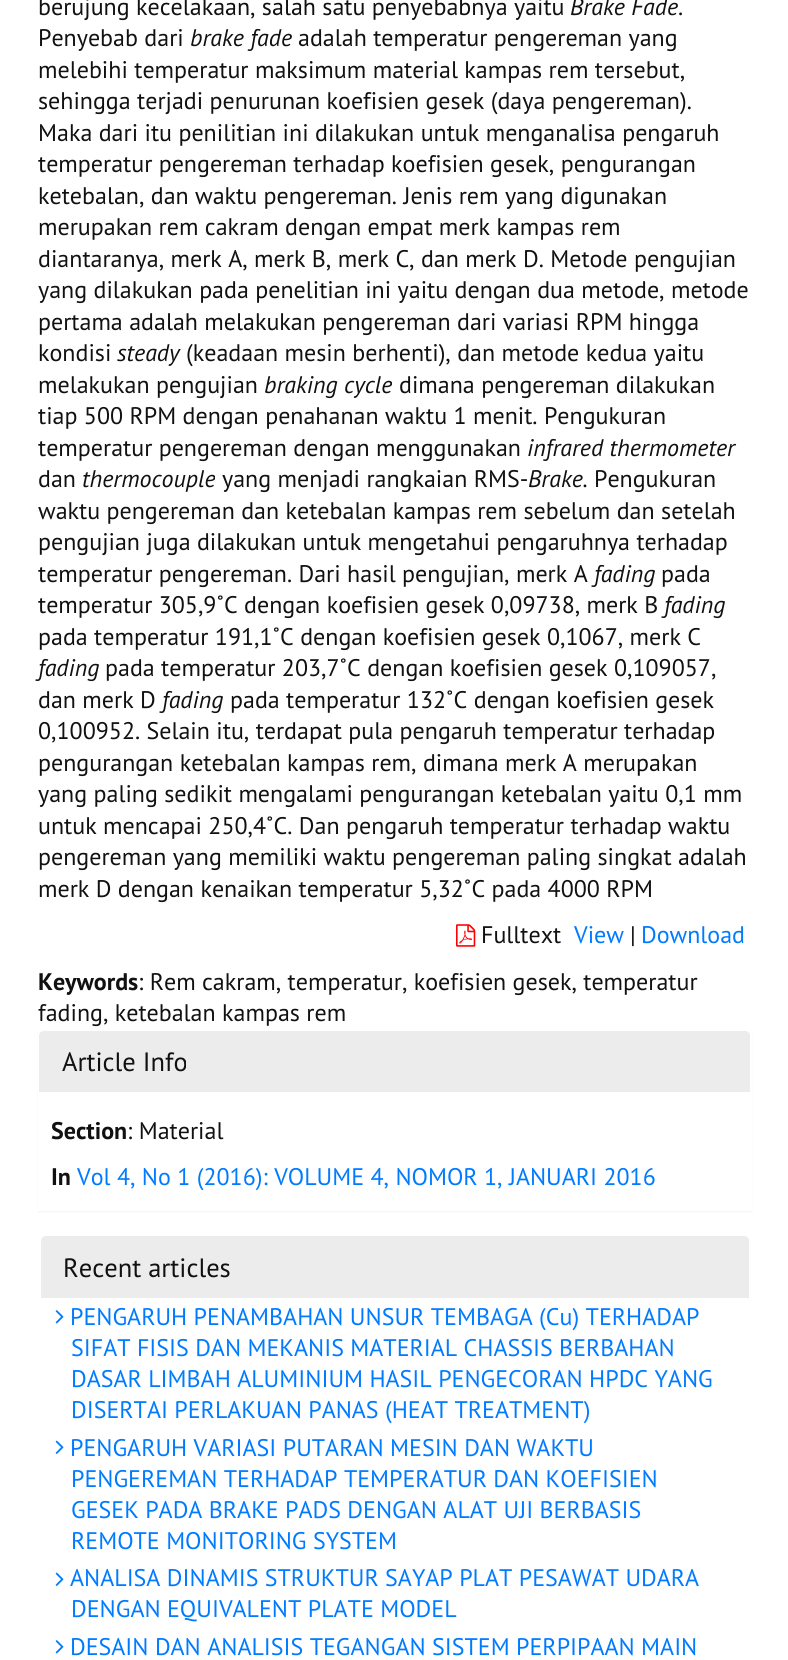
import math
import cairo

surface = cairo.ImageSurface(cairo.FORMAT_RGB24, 788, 1660)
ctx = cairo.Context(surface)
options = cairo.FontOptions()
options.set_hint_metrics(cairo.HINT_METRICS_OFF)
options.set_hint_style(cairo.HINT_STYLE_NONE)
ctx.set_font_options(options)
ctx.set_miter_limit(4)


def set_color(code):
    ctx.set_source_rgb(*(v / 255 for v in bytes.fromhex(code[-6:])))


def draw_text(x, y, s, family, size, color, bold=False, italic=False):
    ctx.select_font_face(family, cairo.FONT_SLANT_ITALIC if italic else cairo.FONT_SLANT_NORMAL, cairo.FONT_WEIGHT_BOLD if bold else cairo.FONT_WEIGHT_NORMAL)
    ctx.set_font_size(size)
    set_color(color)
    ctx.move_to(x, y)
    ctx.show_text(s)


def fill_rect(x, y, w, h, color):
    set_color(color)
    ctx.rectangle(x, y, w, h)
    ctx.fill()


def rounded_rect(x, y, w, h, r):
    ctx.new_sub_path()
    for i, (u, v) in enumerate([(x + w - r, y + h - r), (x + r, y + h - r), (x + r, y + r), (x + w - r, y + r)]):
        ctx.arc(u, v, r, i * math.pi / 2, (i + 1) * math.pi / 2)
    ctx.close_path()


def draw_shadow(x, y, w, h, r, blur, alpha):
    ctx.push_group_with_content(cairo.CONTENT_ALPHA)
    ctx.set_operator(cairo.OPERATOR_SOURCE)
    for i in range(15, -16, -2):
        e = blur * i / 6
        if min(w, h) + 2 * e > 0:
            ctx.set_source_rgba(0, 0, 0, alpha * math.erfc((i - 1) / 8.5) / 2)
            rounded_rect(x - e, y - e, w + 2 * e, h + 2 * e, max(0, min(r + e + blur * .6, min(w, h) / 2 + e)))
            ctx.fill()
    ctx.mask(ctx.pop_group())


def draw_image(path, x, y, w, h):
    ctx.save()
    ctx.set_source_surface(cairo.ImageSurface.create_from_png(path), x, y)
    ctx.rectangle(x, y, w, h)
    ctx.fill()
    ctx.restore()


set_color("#ffffff")
ctx.paint()
draw_text(38, 15, "berujung kecelakaan, salah satu penyebabnya yaitu", "PT Sans", 24, "#111111")
draw_text(570, 15, "Brake Fade", "PT Sans", 24, "#111111", italic=True)
draw_text(678, 15, ".", "PT Sans", 24, "#111111")
draw_text(38, 46, "Penyebab dari", "PT Sans", 24, "#111111")
draw_text(190, 46, "brake fade", "PT Sans", 24, "#111111", italic=True)
draw_text(298, 46, "adalah temperatur pengereman yang", "PT Sans", 24, "#111111")
draw_text(38, 78, "melebihi temperatur maksimum material kampas rem tersebut,", "PT Sans", 24, "#111111")
draw_text(38, 109, "sehingga terjadi penurunan koefisien gesek (daya pengereman).", "PT Sans", 24, "#111111")
draw_text(38, 141, "Maka dari itu penilitian ini dilakukan untuk menganalisa pengaruh", "PT Sans", 24, "#111111")
draw_text(38, 172, "temperatur pengereman terhadap koefisien gesek, pengurangan", "PT Sans", 24, "#111111")
draw_text(38, 204, "ketebalan, dan waktu pengereman. Jenis rem yang digunakan", "PT Sans", 24, "#111111")
draw_text(38, 235, "merupakan rem cakram dengan empat merk kampas rem", "PT Sans", 24, "#111111")
draw_text(38, 267, "diantaranya, merk A, merk B, merk C, dan merk D. Metode pengujian", "PT Sans", 24, "#111111")
draw_text(38, 298, "yang dilakukan pada penelitian ini yaitu dengan dua metode, metode", "PT Sans", 24, "#111111")
draw_text(38, 330, "pertama adalah melakukan pengereman dari variasi RPM hingga", "PT Sans", 24, "#111111")
draw_text(38, 361, "kondisi", "PT Sans", 24, "#111111")
draw_text(117, 361, "steady", "PT Sans", 24, "#111111", italic=True)
draw_text(186, 361, "(keadaan mesin berhenti), dan metode kedua yaitu", "PT Sans", 24, "#111111")
draw_text(38, 393, "melakukan pengujian", "PT Sans", 24, "#111111")
draw_text(264, 393, "braking cycle", "PT Sans", 24, "#111111", italic=True)
draw_text(399, 393, "dimana pengereman dilakukan", "PT Sans", 24, "#111111")
draw_text(38, 424, "tiap 500 RPM dengan penahanan waktu 1 menit. Pengukuran", "PT Sans", 24, "#111111")
draw_text(38, 456, "temperatur pengereman dengan menggunakan", "PT Sans", 24, "#111111")
draw_text(527, 456, "infrared thermometer", "PT Sans", 24, "#111111", italic=True)
draw_text(38, 487, "dan", "PT Sans", 24, "#111111")
draw_text(82, 487, "thermocouple", "PT Sans", 24, "#111111", italic=True)
draw_text(222, 487, "yang menjadi rangkaian RMS-", "PT Sans", 24, "#111111")
draw_text(528, 487, "Brake.", "PT Sans", 24, "#111111", italic=True)
draw_text(594, 487, "Pengukuran", "PT Sans", 24, "#111111")
draw_text(38, 519, "waktu pengereman dan ketebalan kampas rem sebelum dan setelah", "PT Sans", 24, "#111111")
draw_text(38, 550, "pengujian juga dilakukan untuk mengetahui pengaruhnya terhadap", "PT Sans", 24, "#111111")
draw_text(38, 582, "temperatur pengereman. Dari hasil pengujian, merk A", "PT Sans", 24, "#111111")
draw_text(594, 582, "fading", "PT Sans", 24, "#111111", italic=True)
draw_text(661, 582, "pada", "PT Sans", 24, "#111111")
draw_text(38, 613, "temperatur 305,9˚C dengan koefisien gesek 0,09738, merk B", "PT Sans", 24, "#111111")
draw_text(664, 613, "fading", "PT Sans", 24, "#111111", italic=True)
draw_text(38, 645, "pada temperatur 191,1˚C dengan koefisien gesek 0,1067, merk C", "PT Sans", 24, "#111111")
draw_text(38, 676, "fading", "PT Sans", 24, "#111111", italic=True)
draw_text(105, 676, "pada temperatur 203,7˚C dengan koefisien gesek 0,109057,", "PT Sans", 24, "#111111")
draw_text(38, 708, "dan merk D", "PT Sans", 24, "#111111")
draw_text(162, 708, "fading", "PT Sans", 24, "#111111", italic=True)
draw_text(230, 708, "pada temperatur 132˚C dengan koefisien gesek", "PT Sans", 24, "#111111")
draw_text(38, 739, "0,100952. Selain itu, terdapat pula pengaruh temperatur terhadap", "PT Sans", 24, "#111111")
draw_text(38, 771, "pengurangan ketebalan kampas rem, dimana merk A merupakan", "PT Sans", 24, "#111111")
draw_text(38, 802, "yang paling sedikit mengalami pengurangan ketebalan yaitu 0,1 mm", "PT Sans", 24, "#111111")
draw_text(38, 834, "untuk mencapai 250,4˚C. Dan pengaruh temperatur terhadap waktu", "PT Sans", 24, "#111111")
draw_text(38, 865, "pengereman yang memiliki waktu pengereman paling singkat adalah", "PT Sans", 24, "#111111")
draw_text(38, 897, "merk D dengan kenaikan temperatur 5,32˚C pada 4000 RPM", "PT Sans", 24, "#111111")
draw_image("assets/img1.png", 456, 924, 20, 23)
draw_text(481, 943, "Fulltext", "PT Sans", 24, "#111111")
draw_text(574, 943, "View", "PT Sans", 24, "#007bff")
draw_text(630, 943, "|", "PT Sans", 24, "#111111")
draw_text(641, 943, "Download", "PT Sans", 24, "#007bff")
draw_text(38, 990, "Keywords", "PT Sans", 24, "#111111", bold=True)
draw_text(138, 990, ": Rem cakram, temperatur, koefisien gesek, temperatur", "PT Sans", 24, "#111111")
draw_text(38, 1021, "fading, ketebalan kampas rem", "PT Sans", 24, "#111111")
set_color("#000000")
draw_shadow(38, 1031, 714, 181, 0, 1, 0.05)
fill_rect(38, 1030, 714, 181, "#ffffff")
set_color("#ececed")
ctx.new_path()
ctx.move_to(44, 1031)
ctx.line_to(745, 1031)
ctx.curve_to(748, 1031, 750, 1033, 750, 1036)
ctx.line_to(750, 1092)
ctx.line_to(39, 1092)
ctx.line_to(39, 1036)
ctx.curve_to(39, 1033, 41, 1031, 44, 1031)
ctx.close_path()
ctx.fill()
draw_text(62, 1071, "Article Info", "PT Sans", 26.5, "#111111")
draw_text(51, 1139, "Section", "PT Sans", 24, "#111111", bold=True)
draw_text(127, 1139, ": Material", "PT Sans", 24, "#111111")
draw_text(51, 1185, "In", "PT Sans", 24, "#111111", bold=True)
draw_text(77, 1185, "Vol 4, No 1 (2016): VOLUME 4, NOMOR 1, JANUARI 2016", "PT Sans", 24, "#007bff")
set_color("#ececed")
ctx.new_path()
ctx.move_to(46, 1236)
ctx.line_to(744, 1236)
ctx.curve_to(747, 1236, 749, 1238, 749, 1241)
ctx.line_to(749, 1298)
ctx.line_to(41, 1298)
ctx.line_to(41, 1241)
ctx.curve_to(41, 1238, 43, 1236, 46, 1236)
ctx.close_path()
ctx.fill()
draw_text(63, 1277, "Recent articles", "PT Sans", 26.5, "#111111")
draw_image("assets/img2.png", 55, 1310, 9, 14)
draw_text(70, 1325, "PENGARUH PENAMBAHAN UNSUR TEMBAGA (Cu) TERHADAP", "PT Sans", 24, "#007bff")
draw_text(71, 1356, "SIFAT FISIS DAN MEKANIS MATERIAL CHASSIS BERBAHAN", "PT Sans", 24, "#007bff")
draw_text(71, 1387, "DASAR LIMBAH ALUMINIUM HASIL PENGECORAN HPDC YANG", "PT Sans", 24, "#007bff")
draw_text(71, 1418, "DISERTAI PERLAKUAN PANAS (HEAT TREATMENT)", "PT Sans", 24, "#007bff")
draw_image("assets/img3.png", 55, 1440, 9, 14)
draw_text(70, 1456, "PENGARUH VARIASI PUTARAN MESIN DAN WAKTU", "PT Sans", 24, "#007bff")
draw_text(71, 1487, "PENGEREMAN TERHADAP TEMPERATUR DAN KOEFISIEN", "PT Sans", 24, "#007bff")
draw_text(71, 1518, "GESEK PADA BRAKE PADS DENGAN ALAT UJI BERBASIS", "PT Sans", 24, "#007bff")
draw_text(71, 1549, "REMOTE MONITORING SYSTEM", "PT Sans", 24, "#007bff")
draw_image("assets/img3.png", 55, 1572, 9, 14)
draw_text(70, 1586, "ANALISA DINAMIS STRUKTUR SAYAP PLAT PESAWAT UDARA", "PT Sans", 24, "#007bff")
draw_text(71, 1617, "DENGAN EQUIVALENT PLATE MODEL", "PT Sans", 24, "#007bff")
draw_image("assets/img2.png", 55, 1640, 9, 14)
draw_text(70, 1655, "DESAIN DAN ANALISIS TEGANGAN SISTEM PERPIPAAN MAIN", "PT Sans", 24, "#007bff")
surface.write_to_png("output.png")
